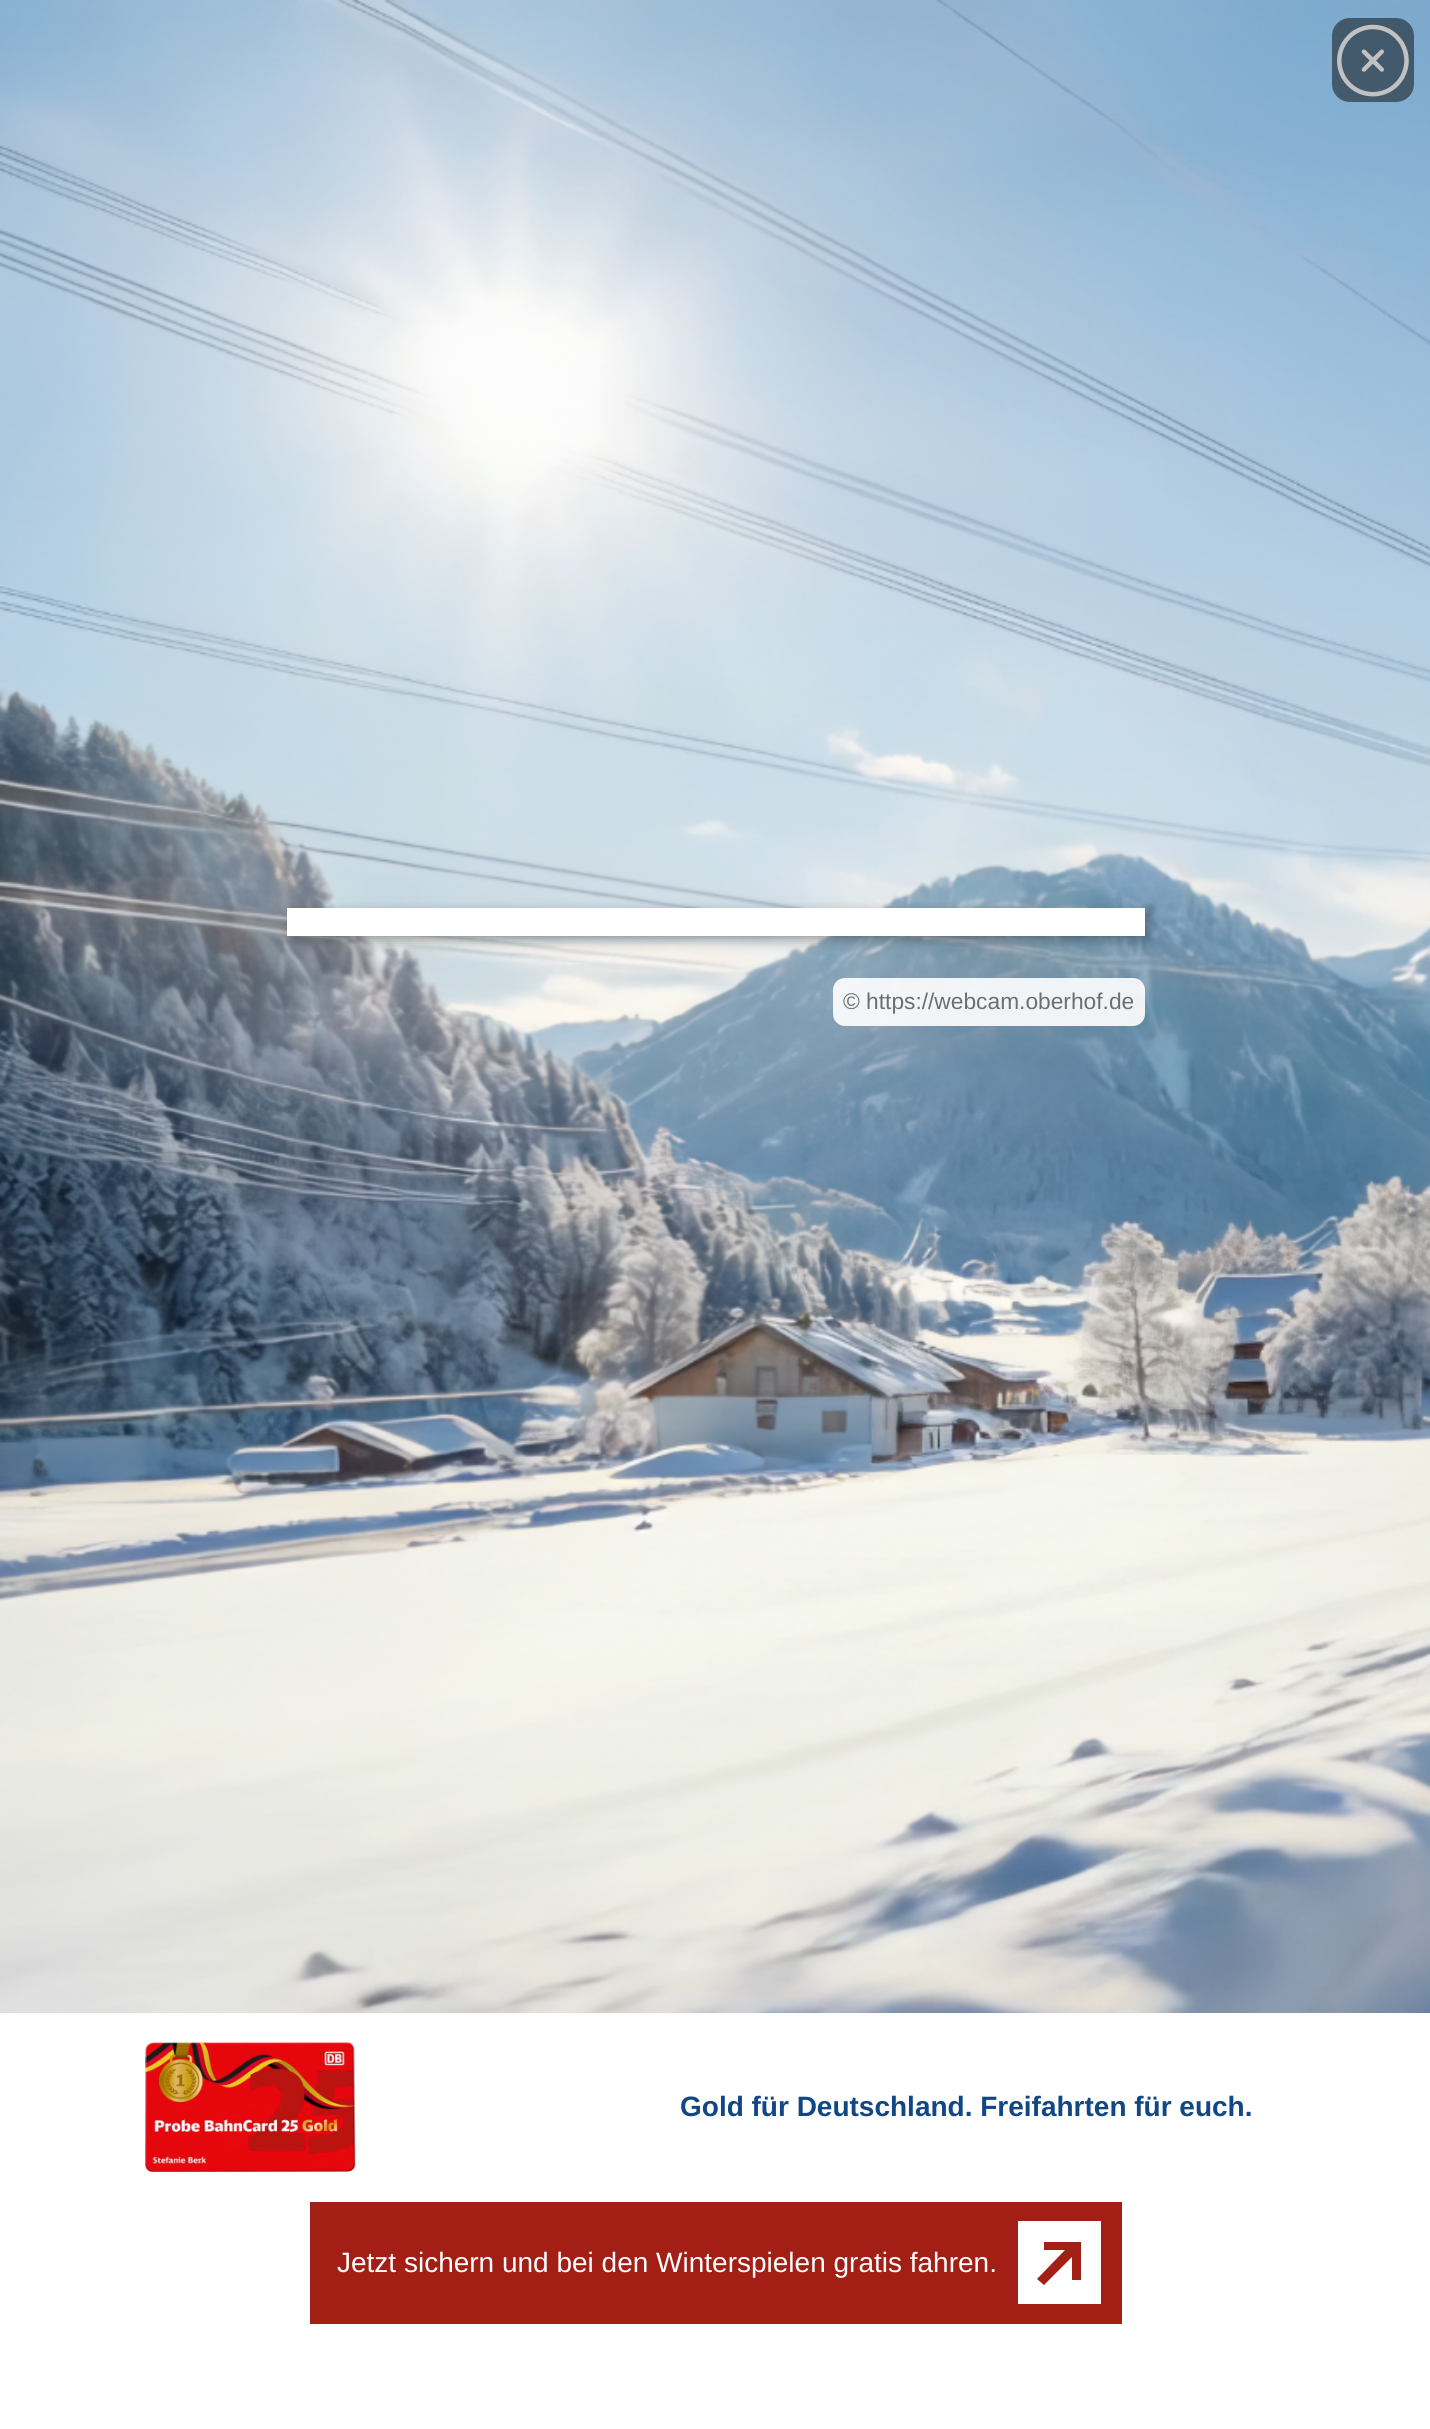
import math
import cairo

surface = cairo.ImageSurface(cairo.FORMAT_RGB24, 1430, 2429)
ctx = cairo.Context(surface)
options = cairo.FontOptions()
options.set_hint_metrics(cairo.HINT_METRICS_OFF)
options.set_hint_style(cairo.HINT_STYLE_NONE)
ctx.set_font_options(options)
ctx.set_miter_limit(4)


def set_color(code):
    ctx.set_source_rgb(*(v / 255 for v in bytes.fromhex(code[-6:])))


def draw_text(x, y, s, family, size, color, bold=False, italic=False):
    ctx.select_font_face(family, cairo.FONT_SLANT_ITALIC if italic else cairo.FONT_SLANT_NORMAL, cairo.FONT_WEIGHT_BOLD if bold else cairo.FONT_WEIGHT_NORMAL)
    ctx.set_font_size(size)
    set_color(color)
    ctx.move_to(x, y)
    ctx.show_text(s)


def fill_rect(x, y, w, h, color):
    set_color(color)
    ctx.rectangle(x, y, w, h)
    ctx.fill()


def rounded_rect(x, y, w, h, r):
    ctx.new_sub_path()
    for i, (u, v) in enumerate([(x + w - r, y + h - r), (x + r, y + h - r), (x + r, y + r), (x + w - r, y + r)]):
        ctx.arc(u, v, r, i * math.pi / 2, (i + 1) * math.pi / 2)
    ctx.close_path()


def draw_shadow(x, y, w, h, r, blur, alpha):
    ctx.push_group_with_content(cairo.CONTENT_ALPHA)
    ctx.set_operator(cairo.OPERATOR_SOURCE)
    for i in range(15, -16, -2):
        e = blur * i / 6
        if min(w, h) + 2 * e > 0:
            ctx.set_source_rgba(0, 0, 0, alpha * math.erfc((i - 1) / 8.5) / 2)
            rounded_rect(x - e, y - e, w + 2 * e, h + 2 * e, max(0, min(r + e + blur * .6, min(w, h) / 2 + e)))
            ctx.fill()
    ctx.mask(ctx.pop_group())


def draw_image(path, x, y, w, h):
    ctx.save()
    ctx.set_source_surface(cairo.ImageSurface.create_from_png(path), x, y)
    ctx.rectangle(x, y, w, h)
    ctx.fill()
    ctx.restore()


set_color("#ffffff")
ctx.paint()
draw_image("assets/img1.png", 0, 0, 1430, 2013)
ctx.set_source_rgba(0, 0, 0, 0.48)
rounded_rect(1332, 18, 82, 84, 18)
ctx.fill()
draw_image("assets/img2.png", 1337, 24, 72, 73)
set_color("#000000")
draw_shadow(292, 914, 854, 24, 0, 7, 0.43)
fill_rect(287, 908, 858, 28, "#ffffff")
ctx.set_source_rgba(1, 1, 1, 0.9)
rounded_rect(833, 978, 312, 48, 12)
ctx.fill()
draw_text(843, 1009, "© https://webcam.oberhof.de", "Liberation Sans", 22.75, "#6d6e6f")
draw_image("assets/img3.png", 145, 2042, 211, 130)
draw_text(680, 2116, "Gold für Deutschland. Freifahrten für euch.", "Liberation Sans", 28, "#104784", bold=True)
fill_rect(310, 2202, 812, 122, "#a31f16")
draw_text(337, 2272, "Jetzt sichern und bei den Winterspielen gratis fahren.", "Liberation Sans", 28, "#ffffff")
ctx.new_path()
ctx.move_to(1018, 2221)
ctx.line_to(1101, 2221)
ctx.line_to(1018, 2221)
ctx.line_to(1101, 2221)
ctx.line_to(1101, 2304)
ctx.line_to(1018, 2304)
ctx.close_path()
ctx.move_to(1076, 2242)
ctx.line_to(1044, 2242)
ctx.line_to(1044, 2250)
ctx.line_to(1065, 2250)
ctx.line_to(1037, 2279)
ctx.line_to(1044, 2285)
ctx.line_to(1072, 2257)
ctx.line_to(1072, 2280)
ctx.line_to(1081, 2280)
ctx.line_to(1081, 2242)
ctx.close_path()
ctx.fill()
surface.write_to_png("output.png")
